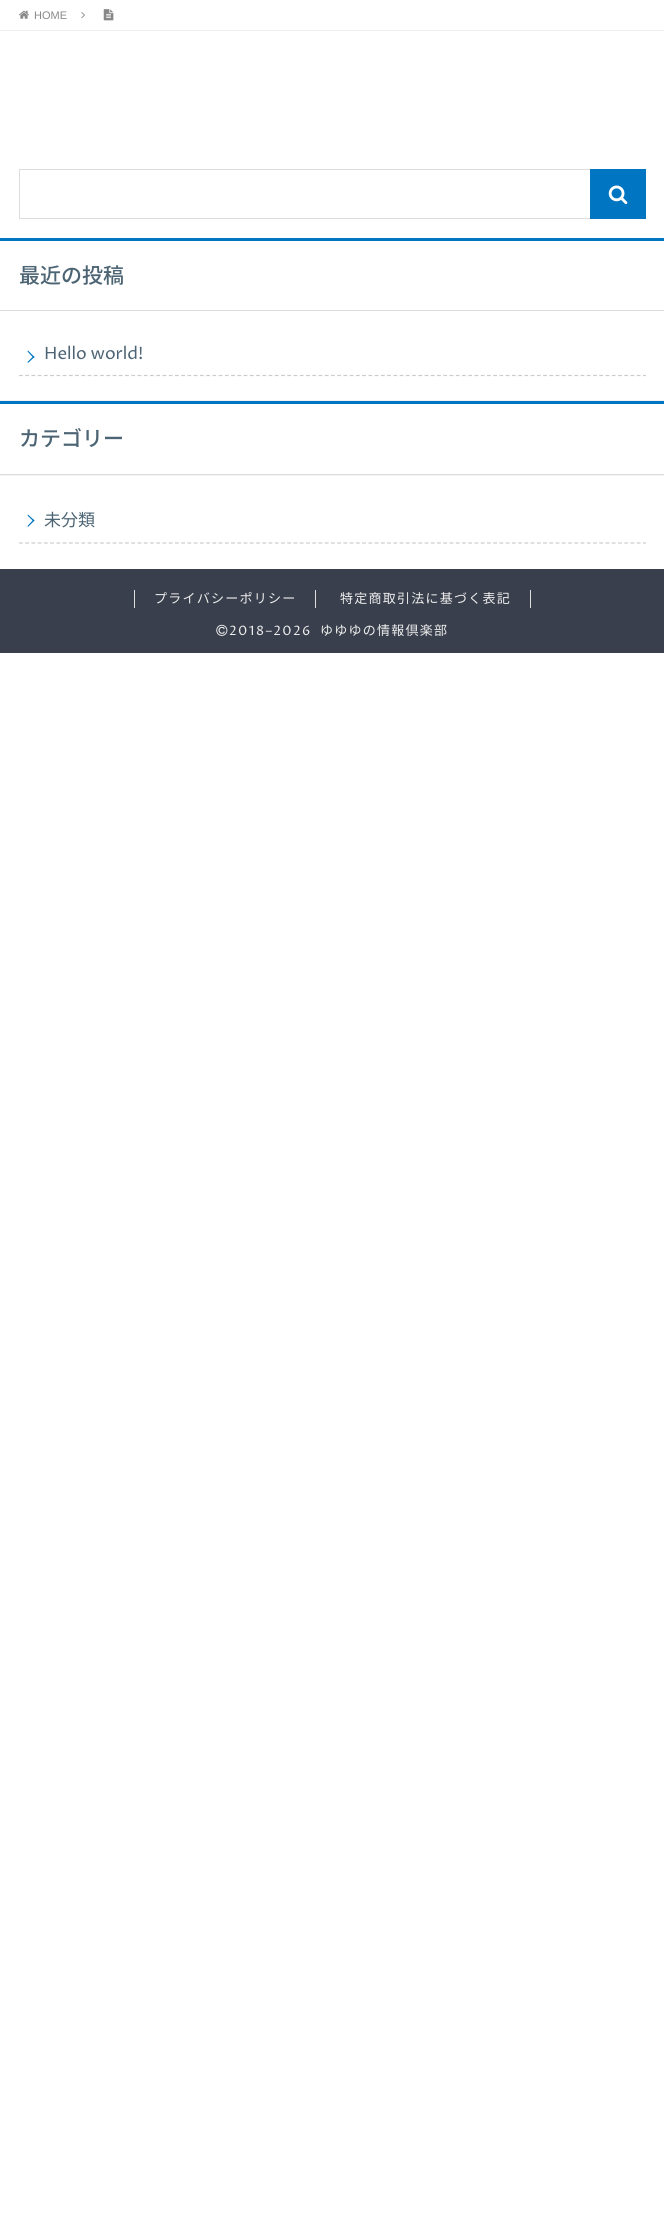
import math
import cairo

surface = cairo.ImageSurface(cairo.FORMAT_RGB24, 664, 2237)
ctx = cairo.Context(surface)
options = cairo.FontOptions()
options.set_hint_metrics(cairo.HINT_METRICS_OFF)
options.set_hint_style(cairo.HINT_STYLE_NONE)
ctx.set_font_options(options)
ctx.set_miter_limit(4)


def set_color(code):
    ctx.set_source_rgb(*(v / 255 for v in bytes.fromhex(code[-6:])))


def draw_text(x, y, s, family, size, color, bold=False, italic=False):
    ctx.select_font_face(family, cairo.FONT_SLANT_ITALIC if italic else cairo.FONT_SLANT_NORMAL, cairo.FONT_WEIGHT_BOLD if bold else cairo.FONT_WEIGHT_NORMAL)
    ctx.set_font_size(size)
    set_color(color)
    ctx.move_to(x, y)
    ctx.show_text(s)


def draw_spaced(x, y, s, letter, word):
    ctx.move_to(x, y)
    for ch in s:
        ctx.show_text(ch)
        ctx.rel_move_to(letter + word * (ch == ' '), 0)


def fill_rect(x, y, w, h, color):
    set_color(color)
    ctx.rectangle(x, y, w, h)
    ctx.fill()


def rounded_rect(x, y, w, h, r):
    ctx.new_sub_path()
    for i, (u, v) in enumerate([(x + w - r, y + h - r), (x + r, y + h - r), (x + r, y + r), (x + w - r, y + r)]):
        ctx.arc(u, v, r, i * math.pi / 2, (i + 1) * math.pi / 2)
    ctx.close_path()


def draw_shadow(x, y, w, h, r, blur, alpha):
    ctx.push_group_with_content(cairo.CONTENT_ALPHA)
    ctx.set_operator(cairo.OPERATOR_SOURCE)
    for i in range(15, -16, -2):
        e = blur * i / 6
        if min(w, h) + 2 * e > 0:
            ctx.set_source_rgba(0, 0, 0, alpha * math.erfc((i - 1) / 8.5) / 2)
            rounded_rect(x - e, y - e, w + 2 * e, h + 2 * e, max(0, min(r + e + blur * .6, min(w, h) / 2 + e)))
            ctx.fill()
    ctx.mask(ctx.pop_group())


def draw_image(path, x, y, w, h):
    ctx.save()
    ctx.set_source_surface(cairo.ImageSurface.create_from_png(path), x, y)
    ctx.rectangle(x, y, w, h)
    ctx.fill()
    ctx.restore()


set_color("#ffffff")
ctx.paint()
fill_rect(0, 30, 664, 1, "#eeeeee")
draw_image("assets/img1.png", 19, 10, 10, 9)
draw_text(34, 19, "HOME", "Liberation Sans", 11, "#888888")
draw_image("assets/img2.png", 81, 12, 4, 7)
draw_image("assets/img3.png", 103, 9, 11, 12)
ctx.rectangle(19.5, 169.5, 626, 49)
set_color("#dddddd")
ctx.set_line_width(1)
ctx.stroke()
fill_rect(590, 169, 56, 50, "#0075c2")
draw_image("assets/img4.png", 608, 185, 20, 20)
fill_rect(0, 238, 664, 3, "#0075c2")
fill_rect(0, 310, 664, 1, "#dddddd")
draw_text(19, 283, "最近の投稿", "Noto Sans JP Medium", 21, "#4c6473")
set_color("#0075c2")
ctx.new_path()
ctx.move_to(27.5, 351.5)
ctx.line_to(28, 350.5)
ctx.line_to(34.5, 357)
ctx.line_to(33.5, 358)
ctx.close_path()
ctx.fill()
ctx.new_path()
ctx.move_to(27.5, 362)
ctx.line_to(33.5, 356)
ctx.line_to(34.5, 357)
ctx.line_to(28, 363)
ctx.close_path()
ctx.fill()
ctx.new_path()
ctx.move_to(19, 375.5)
ctx.line_to(646, 375.5)
set_color("#cccccc")
ctx.set_line_width(1.2)
ctx.set_dash([3.75, 2.49])
ctx.stroke()
draw_text(44, 359, "Hello world!", "Proza Libre", 17, "#4c6473")
set_color("#cccccc")
draw_shadow(0, 401, 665, 74, 0, 0.5, 1)
fill_rect(0, 404, 664, 70, "#ffffff")
fill_rect(0, 401, 664, 3, "#0075c2")
fill_rect(0, 474, 664, 1, "#dddddd")
draw_text(19, 446, "カテゴリー", "Noto Sans JP Medium", 21, "#4c6473")
set_color("#0075c2")
ctx.new_path()
ctx.move_to(27.5, 515.5)
ctx.line_to(28, 514.5)
ctx.line_to(34.5, 520.5)
ctx.line_to(33.5, 521.5)
ctx.close_path()
ctx.fill()
ctx.new_path()
ctx.move_to(27.5, 526)
ctx.line_to(33.5, 519.5)
ctx.line_to(34.5, 520.5)
ctx.line_to(28, 527)
ctx.close_path()
ctx.fill()
ctx.new_path()
ctx.move_to(19, 543)
ctx.line_to(646, 543)
set_color("#cccccc")
ctx.stroke()
draw_text(44, 526, "未分類", "Noto Sans JP", 17, "#4c6473")
fill_rect(0, 569, 664, 84, "#393f4c")
ctx.set_font_size(13)
set_color("#eeeeee")
draw_spaced(154, 603, "プライバシーポリシー", 1.25, 0)
fill_rect(315, 590, 1, 18, "#dddddd")
fill_rect(134, 590, 1, 18, "#dddddd")
set_color("#eeeeee")
draw_spaced(340, 603, "特定商取引法に基づく表記", 1.25, 0)
fill_rect(530, 590, 1, 18, "#dddddd")
draw_image("assets/img5.png", 216, 624, 12, 12)
ctx.select_font_face("Proza Libre")
set_color("#eeeeee")
draw_spaced(229, 635, "2018–2026", 1.25, 0)
ctx.select_font_face("Noto Sans JP")
draw_spaced(320, 635, "ゆゆゆの情報倶楽部", 1.25, 0)
surface.write_to_png("output.png")
